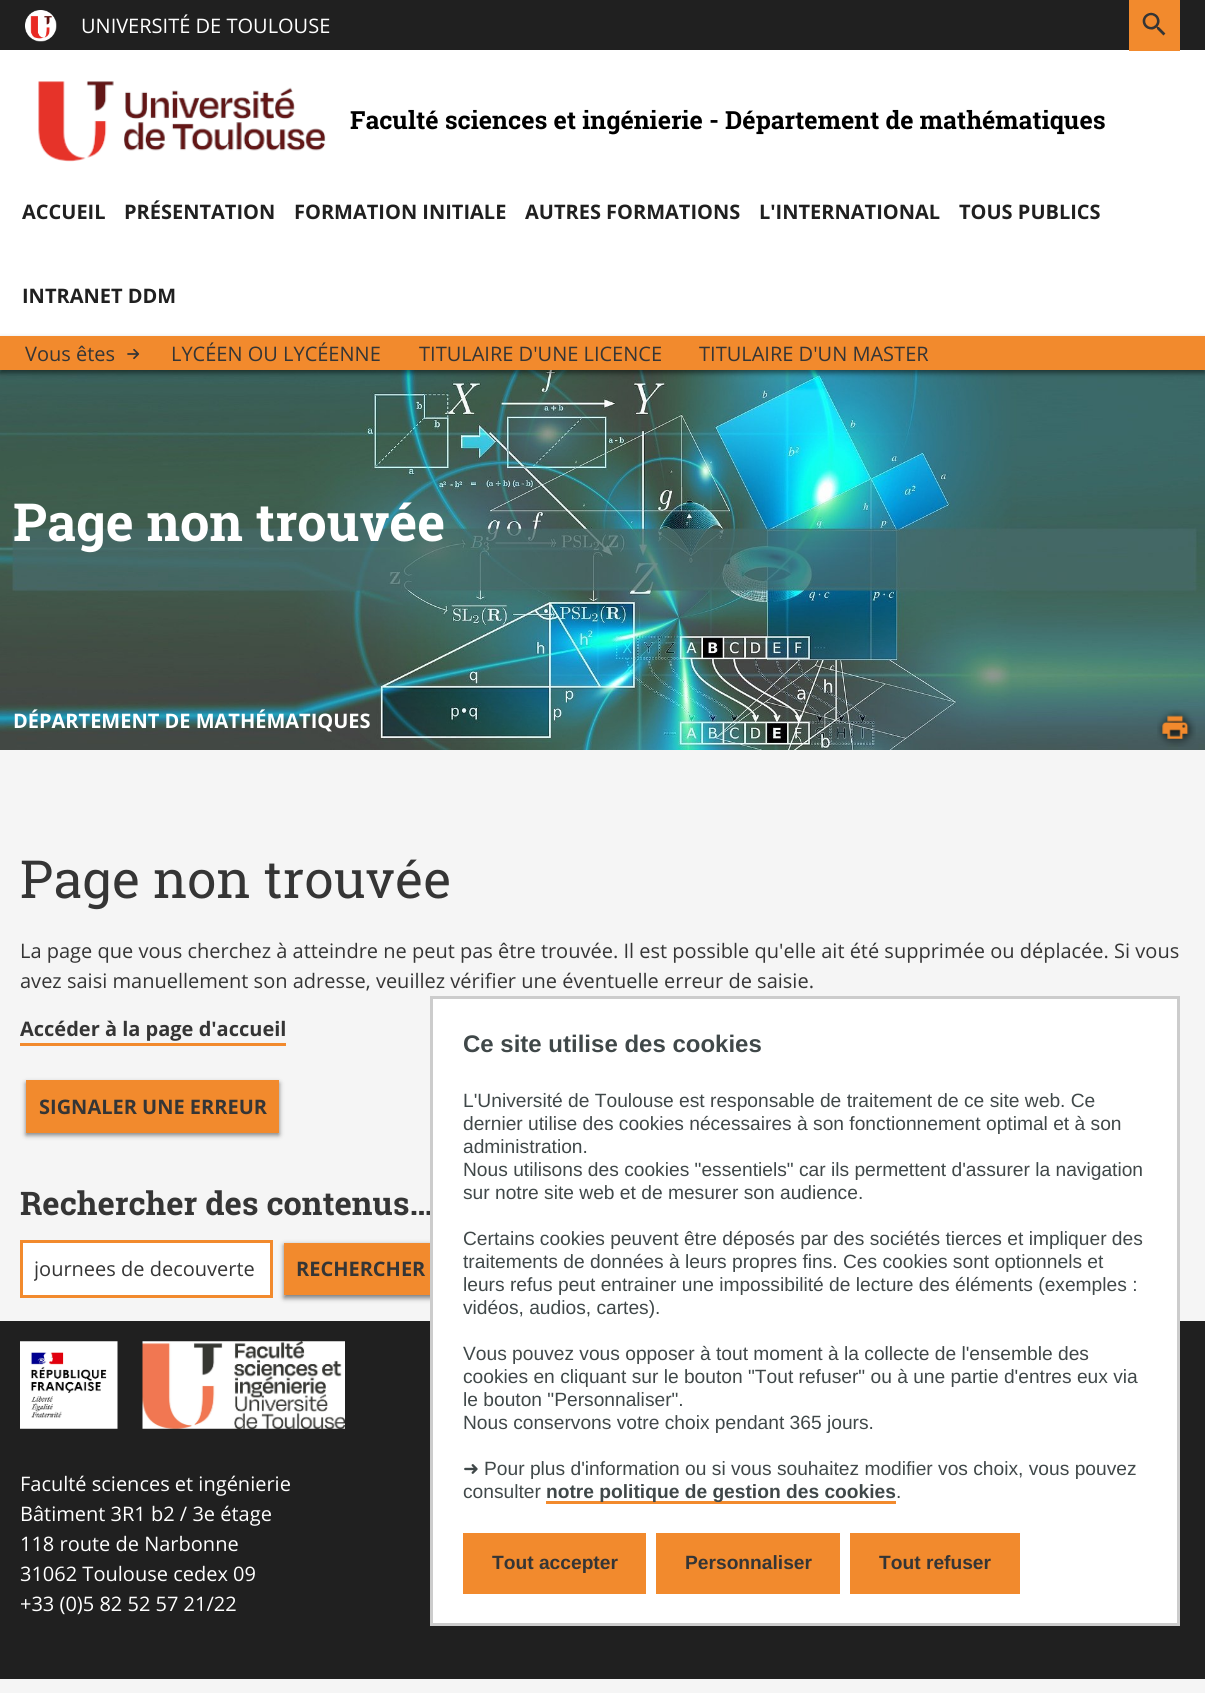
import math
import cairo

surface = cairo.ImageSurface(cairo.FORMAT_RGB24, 1205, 1693)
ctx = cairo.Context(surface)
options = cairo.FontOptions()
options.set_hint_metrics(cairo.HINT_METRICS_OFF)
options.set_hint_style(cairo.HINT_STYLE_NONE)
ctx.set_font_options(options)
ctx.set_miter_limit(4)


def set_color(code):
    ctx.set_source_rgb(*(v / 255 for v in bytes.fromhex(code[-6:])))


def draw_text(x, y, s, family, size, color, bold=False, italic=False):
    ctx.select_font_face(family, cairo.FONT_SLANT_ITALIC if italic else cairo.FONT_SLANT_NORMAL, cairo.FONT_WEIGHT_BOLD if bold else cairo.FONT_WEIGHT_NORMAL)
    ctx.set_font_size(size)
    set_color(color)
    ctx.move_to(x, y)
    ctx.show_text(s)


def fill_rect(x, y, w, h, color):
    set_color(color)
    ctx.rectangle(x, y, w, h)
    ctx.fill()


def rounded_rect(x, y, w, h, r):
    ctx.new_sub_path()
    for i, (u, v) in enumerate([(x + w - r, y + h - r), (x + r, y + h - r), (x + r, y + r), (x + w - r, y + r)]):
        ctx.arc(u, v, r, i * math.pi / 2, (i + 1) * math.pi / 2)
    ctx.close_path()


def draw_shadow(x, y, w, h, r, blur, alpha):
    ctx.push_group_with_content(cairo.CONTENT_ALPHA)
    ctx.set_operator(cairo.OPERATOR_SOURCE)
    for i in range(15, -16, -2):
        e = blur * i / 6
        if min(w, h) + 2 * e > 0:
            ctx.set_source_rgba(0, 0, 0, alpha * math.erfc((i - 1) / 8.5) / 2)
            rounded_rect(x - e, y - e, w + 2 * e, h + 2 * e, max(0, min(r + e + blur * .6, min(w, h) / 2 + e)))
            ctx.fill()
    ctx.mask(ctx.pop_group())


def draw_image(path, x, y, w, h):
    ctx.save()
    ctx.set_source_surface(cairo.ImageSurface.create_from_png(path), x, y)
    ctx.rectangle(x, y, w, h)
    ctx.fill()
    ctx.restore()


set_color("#f5f5f5")
ctx.paint()
fill_rect(0, 50, 1205, 286, "#ffffff")
fill_rect(0, 0, 1205, 50, "#202020")
draw_image("assets/img1.png", 25, 10, 32, 32)
draw_text(81, 33, "UNIVERSITÉ DE TOULOUSE", "Open Sans", 20, "#ffffff")
fill_rect(1129, 0, 51, 51, "#f28a2d")
draw_image("assets/img2.png", 1142, 12, 24, 24)
draw_image("assets/img3.png", 38, 81, 288, 81)
draw_text(350, 129, "Faculté sciences et ingénierie - Département de mathématiques", "Roboto Slab", 25, "#000000", bold=True)
draw_text(22, 219, "ACCUEIL", "Open Sans", 20, "#202020", bold=True)
draw_text(124, 219, "PRÉSENTATION", "Open Sans", 20, "#202020", bold=True)
draw_text(294, 219, "FORMATION INITIALE", "Open Sans", 20, "#202020", bold=True)
draw_text(525, 219, "AUTRES FORMATIONS", "Open Sans", 20, "#202020", bold=True)
draw_text(759, 219, "L'INTERNATIONAL", "Open Sans", 20, "#202020", bold=True)
draw_text(959, 219, "TOUS PUBLICS", "Open Sans", 20, "#202020", bold=True)
draw_text(22, 303, "INTRANET DDM", "Open Sans", 20, "#202020", bold=True)
draw_image("assets/img5.png", 0, 370, 1205, 380)
set_color("#000000")
draw_shadow(0, 339, 1205, 34, 0, 2.5, 0.5)
fill_rect(0, 336, 1205, 34, "#f28a2d")
draw_text(25, 361, "Vous êtes", "Open Sans", 20, "#353535")
draw_image("assets/img4.png", 127, 348, 13, 12)
draw_text(171, 361, "LYCÉEN OU LYCÉENNE", "Open Sans", 20, "#353535")
draw_text(419, 361, "TITULAIRE D'UNE LICENCE", "Open Sans", 20, "#353535")
draw_text(699, 361, "TITULAIRE D'UN MASTER", "Open Sans", 20, "#353535")
draw_text(13, 541, "Page non trouvée", "Roboto Slab", 52.5, "#ffffff", bold=True)
draw_text(13, 728, "DÉPARTEMENT DE MATHÉMATIQUES", "Open Sans", 20, "#ffffff", bold=True)
draw_image("assets/img6.png", 1157, 709, 39, 38)
draw_text(20, 898, "Page non trouvée", "Roboto Slab", 52.5, "#353535")
draw_text(20, 958, "La page que vous cherchez à atteindre ne peut pas être trouvée. Il est possible qu'elle ait été supprimée ou déplacée. Si vous", "Open Sans", 20, "#353535")
draw_text(20, 988, "avez saisi manuellement son adresse, veuillez vérifier une éventuelle erreur de saisie.", "Open Sans", 20, "#353535")
draw_text(20, 1036, "Accéder à la page d'accueil", "Open Sans", 20, "#353535", bold=True)
fill_rect(20, 1043, 266, 3, "#f28a2d")
set_color("#000000")
draw_shadow(26, 1083, 253, 52, 0, 2.5, 0.5)
fill_rect(26, 1080, 253, 53, "#f28a2d")
draw_text(39, 1114, "SIGNALER UNE ERREUR", "Open Sans", 20, "#353535", bold=True)
draw_text(20, 1215, "Rechercher des contenus…", "Roboto Slab", 32.5, "#353535", bold=True)
set_color("#ffffff")
ctx.rectangle(21.5, 1241.5, 250, 55)
ctx.fill_preserve()
set_color("#f28a2d")
ctx.set_line_width(3)
ctx.stroke()
ctx.save()
ctx.rectangle(34, 1254, 225, 30)
ctx.clip()
draw_text(34, 1276, "journees de decouverte", "Open Sans", 20, "#353535")
ctx.restore()
set_color("#000000")
draw_shadow(284, 1245, 155, 53, 0, 2.5, 0.5)
fill_rect(284, 1243, 146, 52, "#f28a2d")
draw_text(296, 1276, "RECHERCHER", "Open Sans", 20, "#353535", bold=True)
fill_rect(0, 1321, 1205, 358, "#202020")
draw_image("assets/img7.png", 20, 1341, 98, 88)
draw_image("assets/img8.png", 142, 1341, 203, 88)
draw_text(20, 1491, "Faculté sciences et ingénierie", "Open Sans", 20, "#ffffff")
draw_text(20, 1521, "Bâtiment 3R1 b2 / 3e étage", "Open Sans", 20, "#ffffff")
draw_text(20, 1551, "118 route de Narbonne", "Open Sans", 20, "#ffffff")
draw_text(20, 1581, "31062 Toulouse cedex 09", "Open Sans", 20, "#ffffff")
draw_text(20, 1611, "+33 (0)5 82 52 57 21/22", "Open Sans", 20, "#ffffff")
ctx.rectangle(431.5, 997.5, 747, 627)
ctx.fill_preserve()
set_color("#cccccc")
ctx.stroke()
draw_text(463, 1052, "Ce site utilise des cookies", "Liberation Sans", 24, "#404849", bold=True)
draw_text(463, 1107, "L'Université de Toulouse est responsable de traitement de ce site web. Ce", "Liberation Sans", 19.2, "#404849")
draw_text(463, 1130, "dernier utilise des cookies nécessaires à son fonctionnement optimal et à son", "Liberation Sans", 19.2, "#404849")
draw_text(463, 1153, "administration.", "Liberation Sans", 19.2, "#404849")
draw_text(463, 1176, "Nous utilisons des cookies \"essentiels\" car ils permettent d'assurer la navigation", "Liberation Sans", 19.2, "#404849")
draw_text(463, 1199, "sur notre site web et de mesurer son audience.", "Liberation Sans", 19.2, "#404849")
draw_text(463, 1245, "Certains cookies peuvent être déposés par des sociétés tierces et impliquer des", "Liberation Sans", 19.2, "#404849")
draw_text(463, 1268, "traitements de données à leurs propres fins. Ces cookies sont optionnels et", "Liberation Sans", 19.2, "#404849")
draw_text(463, 1291, "leurs refus peut entrainer une impossibilité de lecture des éléments (exemples :", "Liberation Sans", 19.2, "#404849")
draw_text(463, 1314, "vidéos, audios, cartes).", "Liberation Sans", 19.2, "#404849")
draw_text(463, 1360, "Vous pouvez vous opposer à tout moment à la collecte de l'ensemble des", "Liberation Sans", 19.2, "#404849")
draw_text(463, 1383, "cookies en cliquant sur le bouton \"Tout refuser\" ou à une partie d'entres eux via", "Liberation Sans", 19.2, "#404849")
draw_text(463, 1406, "le bouton \"Personnaliser\".", "Liberation Sans", 19.2, "#404849")
draw_text(463, 1429, "Nous conservons votre choix pendant 365 jours.", "Liberation Sans", 19.2, "#404849")
draw_text(463, 1475, "➜", "DejaVu Sans", 19.2, "#404849")
draw_text(484, 1475, "Pour plus d'information ou si vous souhaitez modifier vos choix, vous pouvez", "Liberation Sans", 19.2, "#404849")
draw_text(463, 1498, "consulter", "Liberation Sans", 19.2, "#404849")
fill_rect(546, 1501, 350, 3, "#f28a2d")
draw_text(546, 1498, "notre politique de gestion des cookies", "Liberation Sans", 19.2, "#404849", bold=True)
draw_text(896, 1498, ".", "Liberation Sans", 19.2, "#404849")
fill_rect(463, 1533, 183, 61, "#f28a2d")
draw_text(492, 1569, "Tout accepter", "Liberation Sans", 19.2, "#353535", bold=True)
fill_rect(656, 1533, 184, 61, "#f28a2d")
draw_text(685, 1569, "Personnaliser", "Liberation Sans", 19.2, "#353535", bold=True)
fill_rect(850, 1533, 170, 61, "#f28a2d")
draw_text(879, 1569, "Tout refuser", "Liberation Sans", 19.2, "#353535", bold=True)
surface.write_to_png("output.png")
